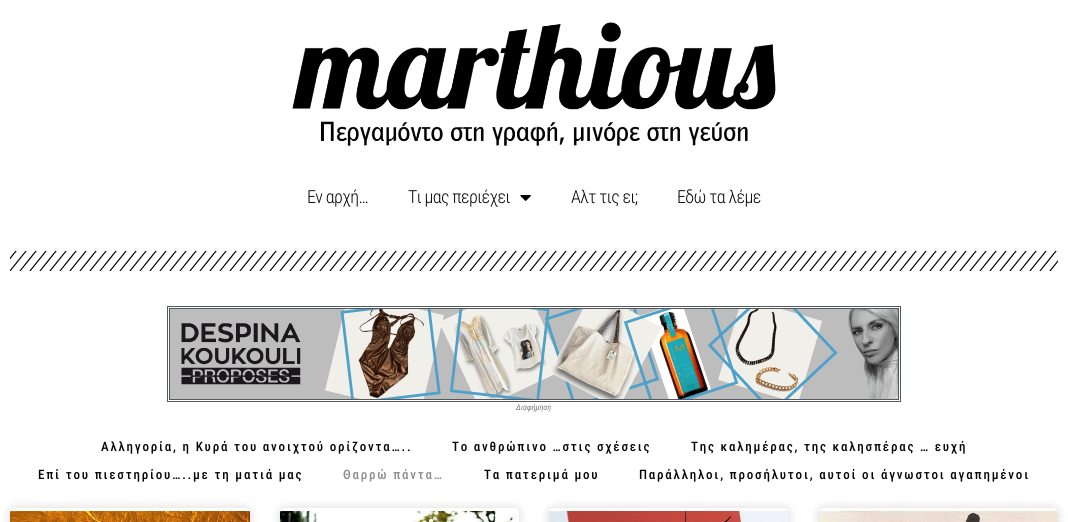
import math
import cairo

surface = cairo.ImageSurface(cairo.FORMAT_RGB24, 1068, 522)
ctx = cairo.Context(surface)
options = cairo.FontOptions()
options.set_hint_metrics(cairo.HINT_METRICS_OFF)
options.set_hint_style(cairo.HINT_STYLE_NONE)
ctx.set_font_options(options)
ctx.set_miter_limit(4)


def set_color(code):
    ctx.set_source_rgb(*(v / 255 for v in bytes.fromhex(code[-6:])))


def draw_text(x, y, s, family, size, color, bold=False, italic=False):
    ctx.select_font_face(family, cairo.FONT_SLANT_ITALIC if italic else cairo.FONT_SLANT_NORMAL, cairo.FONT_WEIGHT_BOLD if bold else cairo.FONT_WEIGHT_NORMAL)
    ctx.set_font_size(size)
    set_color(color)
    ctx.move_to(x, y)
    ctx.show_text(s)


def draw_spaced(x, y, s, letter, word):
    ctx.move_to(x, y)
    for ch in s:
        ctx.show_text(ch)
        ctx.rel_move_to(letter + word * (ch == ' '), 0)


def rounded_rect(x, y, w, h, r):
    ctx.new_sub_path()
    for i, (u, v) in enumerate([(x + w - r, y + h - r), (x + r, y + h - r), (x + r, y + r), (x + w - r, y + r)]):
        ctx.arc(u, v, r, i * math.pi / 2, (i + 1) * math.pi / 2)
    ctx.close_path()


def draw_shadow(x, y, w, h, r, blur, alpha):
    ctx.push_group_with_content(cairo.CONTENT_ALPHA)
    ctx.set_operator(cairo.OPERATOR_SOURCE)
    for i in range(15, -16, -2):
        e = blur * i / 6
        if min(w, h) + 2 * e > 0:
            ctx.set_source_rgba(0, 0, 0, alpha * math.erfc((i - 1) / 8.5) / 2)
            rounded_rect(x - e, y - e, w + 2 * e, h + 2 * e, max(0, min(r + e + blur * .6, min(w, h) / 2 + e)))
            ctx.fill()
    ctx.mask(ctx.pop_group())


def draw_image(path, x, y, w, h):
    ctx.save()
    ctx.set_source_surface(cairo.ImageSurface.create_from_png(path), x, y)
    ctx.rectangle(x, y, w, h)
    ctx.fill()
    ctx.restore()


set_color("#ffffff")
ctx.paint()
draw_image("assets/img1.png", 292, 22, 484, 124)
ctx.select_font_face("Roboto Condensed Light")
ctx.set_font_size(18)
set_color("#050505")
draw_spaced(307, 203, "Eν αρχή…", -0.6, 0)
draw_spaced(408, 203, "Τι μας περιέχει", -0.6, 0)
draw_image("assets/img2.png", 520, 195, 11, 6)
draw_spaced(571, 203, "Αλτ τις ει;", -0.6, 0)
draw_spaced(677, 203, "Εδώ τα λέμε", -0.6, 0)
draw_image("assets/img3.png", 10, 251, 1048, 20)
ctx.rectangle(167.5, 306.5, 733, 95)
set_color("#54595f")
ctx.set_line_width(1)
ctx.stroke()
ctx.rectangle(169.5, 308.5, 729, 91)
ctx.stroke()
draw_image("assets/img4.png", 170, 309, 728, 90)
draw_text(516, 410, "Διαφήμηση", "Roboto Condensed", 8, "#7a7a7a", italic=True)
ctx.select_font_face("Roboto Condensed Medium")
ctx.set_font_size(13)
set_color("#050505")
draw_spaced(101, 451, "Αλληγορία, η Κυρά του ανοιχτού ορίζοντα…..", 1.8, 0)
draw_spaced(452, 451, "Το ανθρώπινο …στις σχέσεις", 1.8, 0)
draw_spaced(691, 451, "Της καλημέρας, της καλησπέρας … ευχή", 1.8, 0)
draw_spaced(38, 479, "Επί του πιεστηρίου…..με τη ματιά μας", 1.8, 0)
set_color("#8d8d8d")
draw_spaced(343, 479, "Θαρρώ πάντα…", 1.8, 0)
set_color("#050505")
draw_spaced(484, 479, "Τα πατεριμά μου", 1.8, 0)
draw_spaced(639, 479, "Παράλληλοι, προσήλυτοι, αυτοί οι άγνωστοι αγαπημένοι", 1.8, 0)
set_color("#000000")
draw_shadow(10, 508, 240, 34, 5, 5, 0.15)
set_color("#ffffff")
rounded_rect(10, 508, 240, 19, 5)
ctx.fill()
draw_image("assets/img5.png", 10, 511, 240, 11)
set_color("#000000")
draw_shadow(280, 508, 239, 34, 5, 5, 0.15)
set_color("#ffffff")
rounded_rect(280, 508, 239, 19, 5)
ctx.fill()
draw_image("assets/img6.png", 280, 511, 237, 11)
set_color("#000000")
draw_shadow(549, 508, 240, 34, 5, 5, 0.15)
set_color("#ffffff")
rounded_rect(549, 508, 240, 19, 5)
ctx.fill()
draw_image("assets/img7.png", 549, 511, 240, 11)
set_color("#000000")
draw_shadow(819, 508, 239, 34, 5, 5, 0.15)
set_color("#ffffff")
rounded_rect(819, 508, 239, 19, 5)
ctx.fill()
draw_image("assets/img8.png", 819, 511, 239, 11)
surface.write_to_png("output.png")
